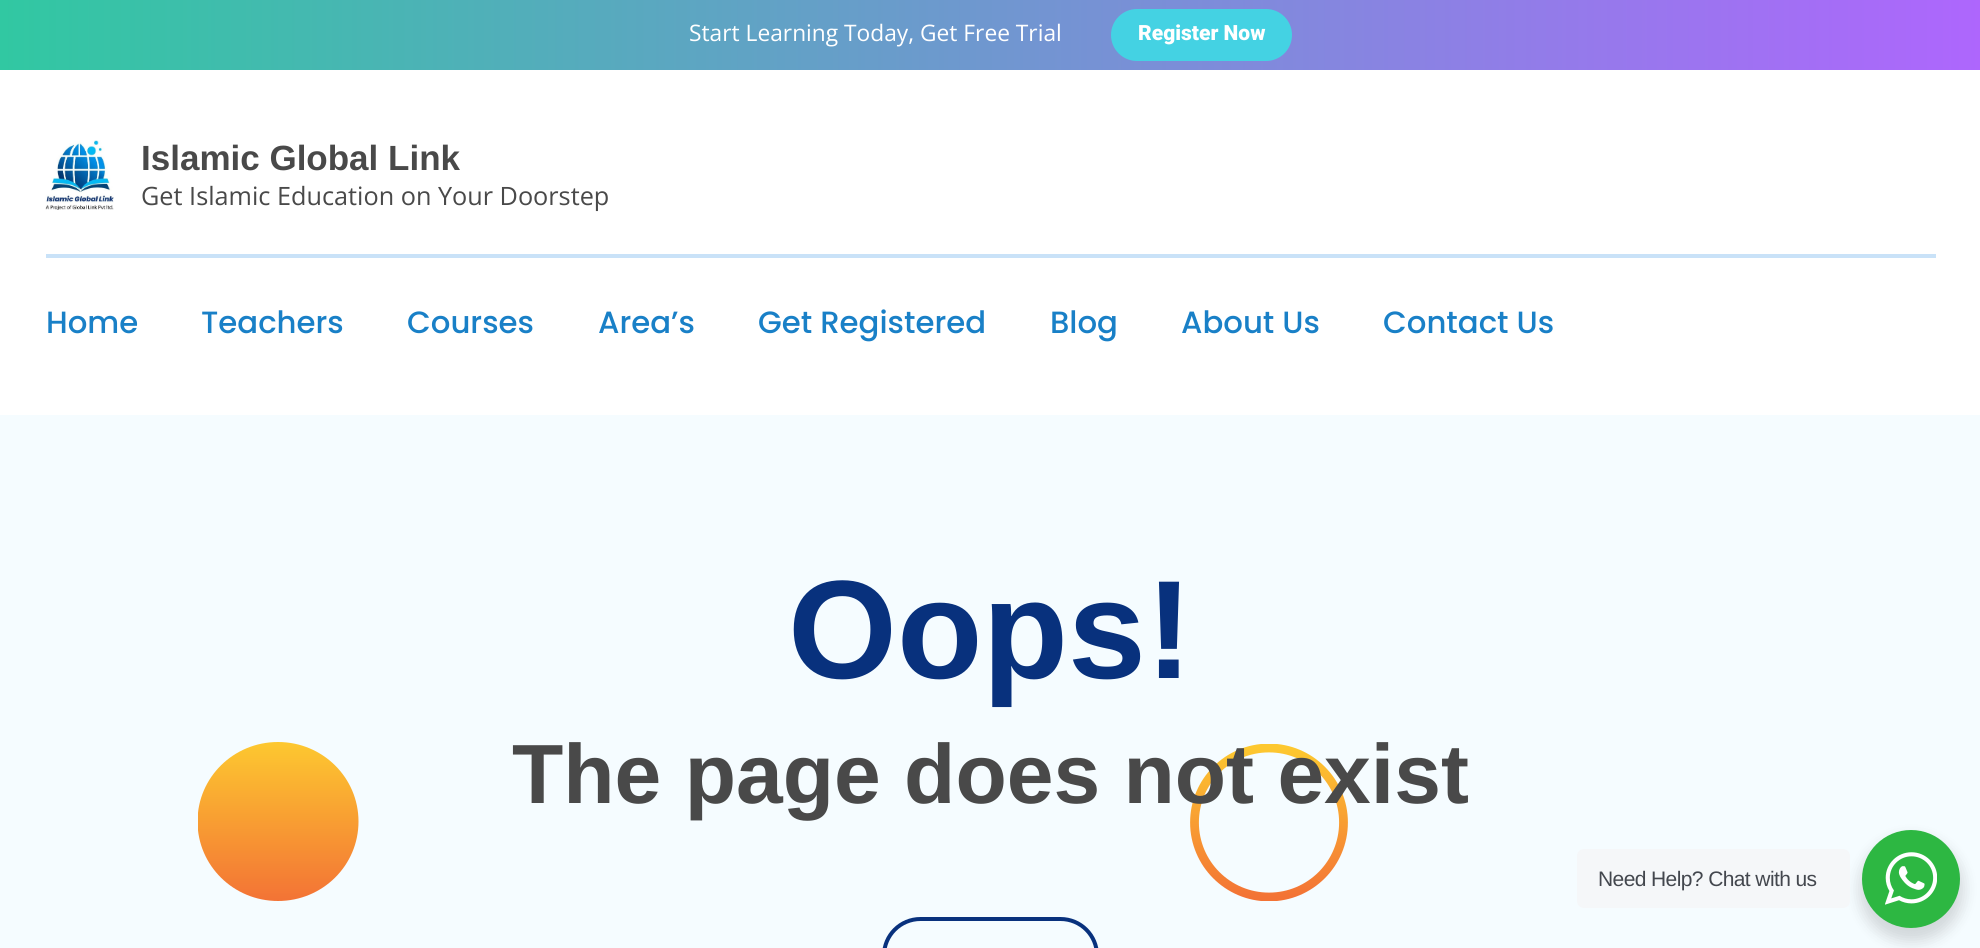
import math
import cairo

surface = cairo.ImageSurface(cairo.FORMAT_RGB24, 1980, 948)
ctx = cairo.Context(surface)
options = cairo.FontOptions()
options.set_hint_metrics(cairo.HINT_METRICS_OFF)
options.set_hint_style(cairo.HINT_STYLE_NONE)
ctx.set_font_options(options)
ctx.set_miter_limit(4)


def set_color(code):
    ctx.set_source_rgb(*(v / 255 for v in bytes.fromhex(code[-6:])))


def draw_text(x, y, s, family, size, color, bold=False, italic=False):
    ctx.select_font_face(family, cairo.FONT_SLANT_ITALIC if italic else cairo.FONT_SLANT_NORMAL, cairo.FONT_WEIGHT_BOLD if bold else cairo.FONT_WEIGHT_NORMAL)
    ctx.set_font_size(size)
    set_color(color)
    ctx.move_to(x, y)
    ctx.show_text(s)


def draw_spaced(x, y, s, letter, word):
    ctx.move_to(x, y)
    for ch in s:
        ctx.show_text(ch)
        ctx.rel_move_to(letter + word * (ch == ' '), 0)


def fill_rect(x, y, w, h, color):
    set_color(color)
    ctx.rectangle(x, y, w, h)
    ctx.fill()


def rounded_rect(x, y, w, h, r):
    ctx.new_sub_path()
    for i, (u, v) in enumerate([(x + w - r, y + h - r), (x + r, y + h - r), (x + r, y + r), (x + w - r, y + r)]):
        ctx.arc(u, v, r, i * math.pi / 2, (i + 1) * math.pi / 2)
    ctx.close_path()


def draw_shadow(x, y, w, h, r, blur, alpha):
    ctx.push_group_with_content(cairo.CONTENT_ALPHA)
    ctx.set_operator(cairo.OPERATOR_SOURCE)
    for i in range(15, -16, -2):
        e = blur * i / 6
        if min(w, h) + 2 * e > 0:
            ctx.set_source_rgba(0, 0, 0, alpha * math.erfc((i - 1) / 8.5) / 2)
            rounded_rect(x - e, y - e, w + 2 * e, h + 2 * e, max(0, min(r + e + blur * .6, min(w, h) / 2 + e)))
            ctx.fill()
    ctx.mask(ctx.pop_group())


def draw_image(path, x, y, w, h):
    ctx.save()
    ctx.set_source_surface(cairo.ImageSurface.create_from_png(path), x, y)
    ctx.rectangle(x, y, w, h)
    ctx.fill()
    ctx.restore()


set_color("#f5fcff")
ctx.paint()
gradient = cairo.LinearGradient(0, 35, 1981, 35)
gradient.add_color_stop_rgba(0, 0.192, 0.784, 0.635, 1)
gradient.add_color_stop_rgba(1, 0.682, 0.4, 0.992, 1)
ctx.set_source(gradient)
ctx.rectangle(0, 0, 1980, 70)
ctx.fill()
draw_text(689, 41, "Start Learning Today, Get Free Trial", "Open Sans", 22.75, "#ffffff")
set_color("#44d2e3")
rounded_rect(1111, 9, 181, 52, 26)
ctx.fill()
draw_text(1138, 40, "Register Now", "Roboto Black", 21, "#ffffff")
fill_rect(0, 70, 1980, 345, "#ffffff")
draw_image("assets/img1.png", 45, 140, 69, 70)
draw_text(141, 170, "Islamic Global Link", "Liberation Sans", 35, "#494949", bold=True)
draw_text(141, 205, "Get Islamic Education on Your Doorstep", "Open Sans", 25.25, "#494949")
fill_rect(46, 254, 1890, 4, "#c9e2f8")
draw_text(46, 333, "Home", "Poppins Medium", 30.75, "#1980c7")
draw_text(201, 333, "Teachers", "Poppins Medium", 30.75, "#1980c7")
draw_text(407, 333, "Courses", "Poppins Medium", 30.75, "#1980c7")
draw_text(598, 333, "Area’s", "Poppins Medium", 30.75, "#1980c7")
draw_text(758, 333, "Get Registered", "Poppins Medium", 30.75, "#1980c7")
draw_text(1050, 333, "Blog", "Poppins Medium", 30.75, "#1980c7")
draw_text(1181, 333, "About Us", "Poppins Medium", 30.75, "#1980c7")
draw_text(1383, 333, "Contact Us", "Poppins Medium", 30.75, "#1980c7")
draw_text(788, 678, "Oops!", "Liberation Sans", 140, "#08317d", bold=True)
ctx.save()
ctx.rectangle(1190, 744, 158, 157)
ctx.clip()
ctx.arc(1269, 822.5, 74.5, 0, 2 * math.pi)
gradient = cairo.LinearGradient(1269, 748, 1269, 897)
gradient.add_color_stop_rgba(0, 0.992, 0.784, 0.188, 1)
gradient.add_color_stop_rgba(1, 0.953, 0.451, 0.208, 1)
ctx.set_source(gradient)
ctx.set_line_width(8.8)
ctx.stroke()
ctx.restore()
draw_text(512, 803, "The page does not exist", "Liberation Sans", 84, "#494949", bold=True)
rounded_rect(884, 919, 213, 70, 36.5)
set_color("#08317d")
ctx.set_line_width(4)
ctx.stroke()
ctx.save()
ctx.rectangle(198, 742, 161, 159)
ctx.clip()
gradient = cairo.LinearGradient(278, 742, 278, 901)
gradient.add_color_stop_rgba(0, 0.992, 0.784, 0.188, 1)
gradient.add_color_stop_rgba(1, 0.953, 0.451, 0.208, 1)
ctx.set_source(gradient)
ctx.new_path()
ctx.move_to(278, 742)
ctx.curve_to(322.5, 742, 358.5, 777.5, 358.5, 821.5)
ctx.curve_to(358.5, 865.5, 322.5, 901, 278, 901)
ctx.curve_to(233.5, 901, 197.5, 865.5, 197.5, 821.5)
ctx.curve_to(197.5, 777.5, 233.5, 742, 278, 742)
ctx.close_path()
ctx.fill()
ctx.restore()
set_color("#000000")
draw_shadow(1859, 837, 105, 105, 52.5, 7, 0.14)
set_color("#f5f7f9")
rounded_rect(1577, 849, 273, 59, 7)
ctx.fill()
ctx.select_font_face("Liberation Sans")
ctx.set_font_size(21)
set_color("#43474e")
draw_spaced(1598, 886, "Need Help? Chat with us", -0.6, 0)
set_color("#2db742")
ctx.new_path()
ctx.arc(1911, 879, 49, 0, 2 * math.pi)
ctx.fill()
draw_image("assets/img2.png", 1885, 852, 52, 53)
surface.write_to_png("output.png")
